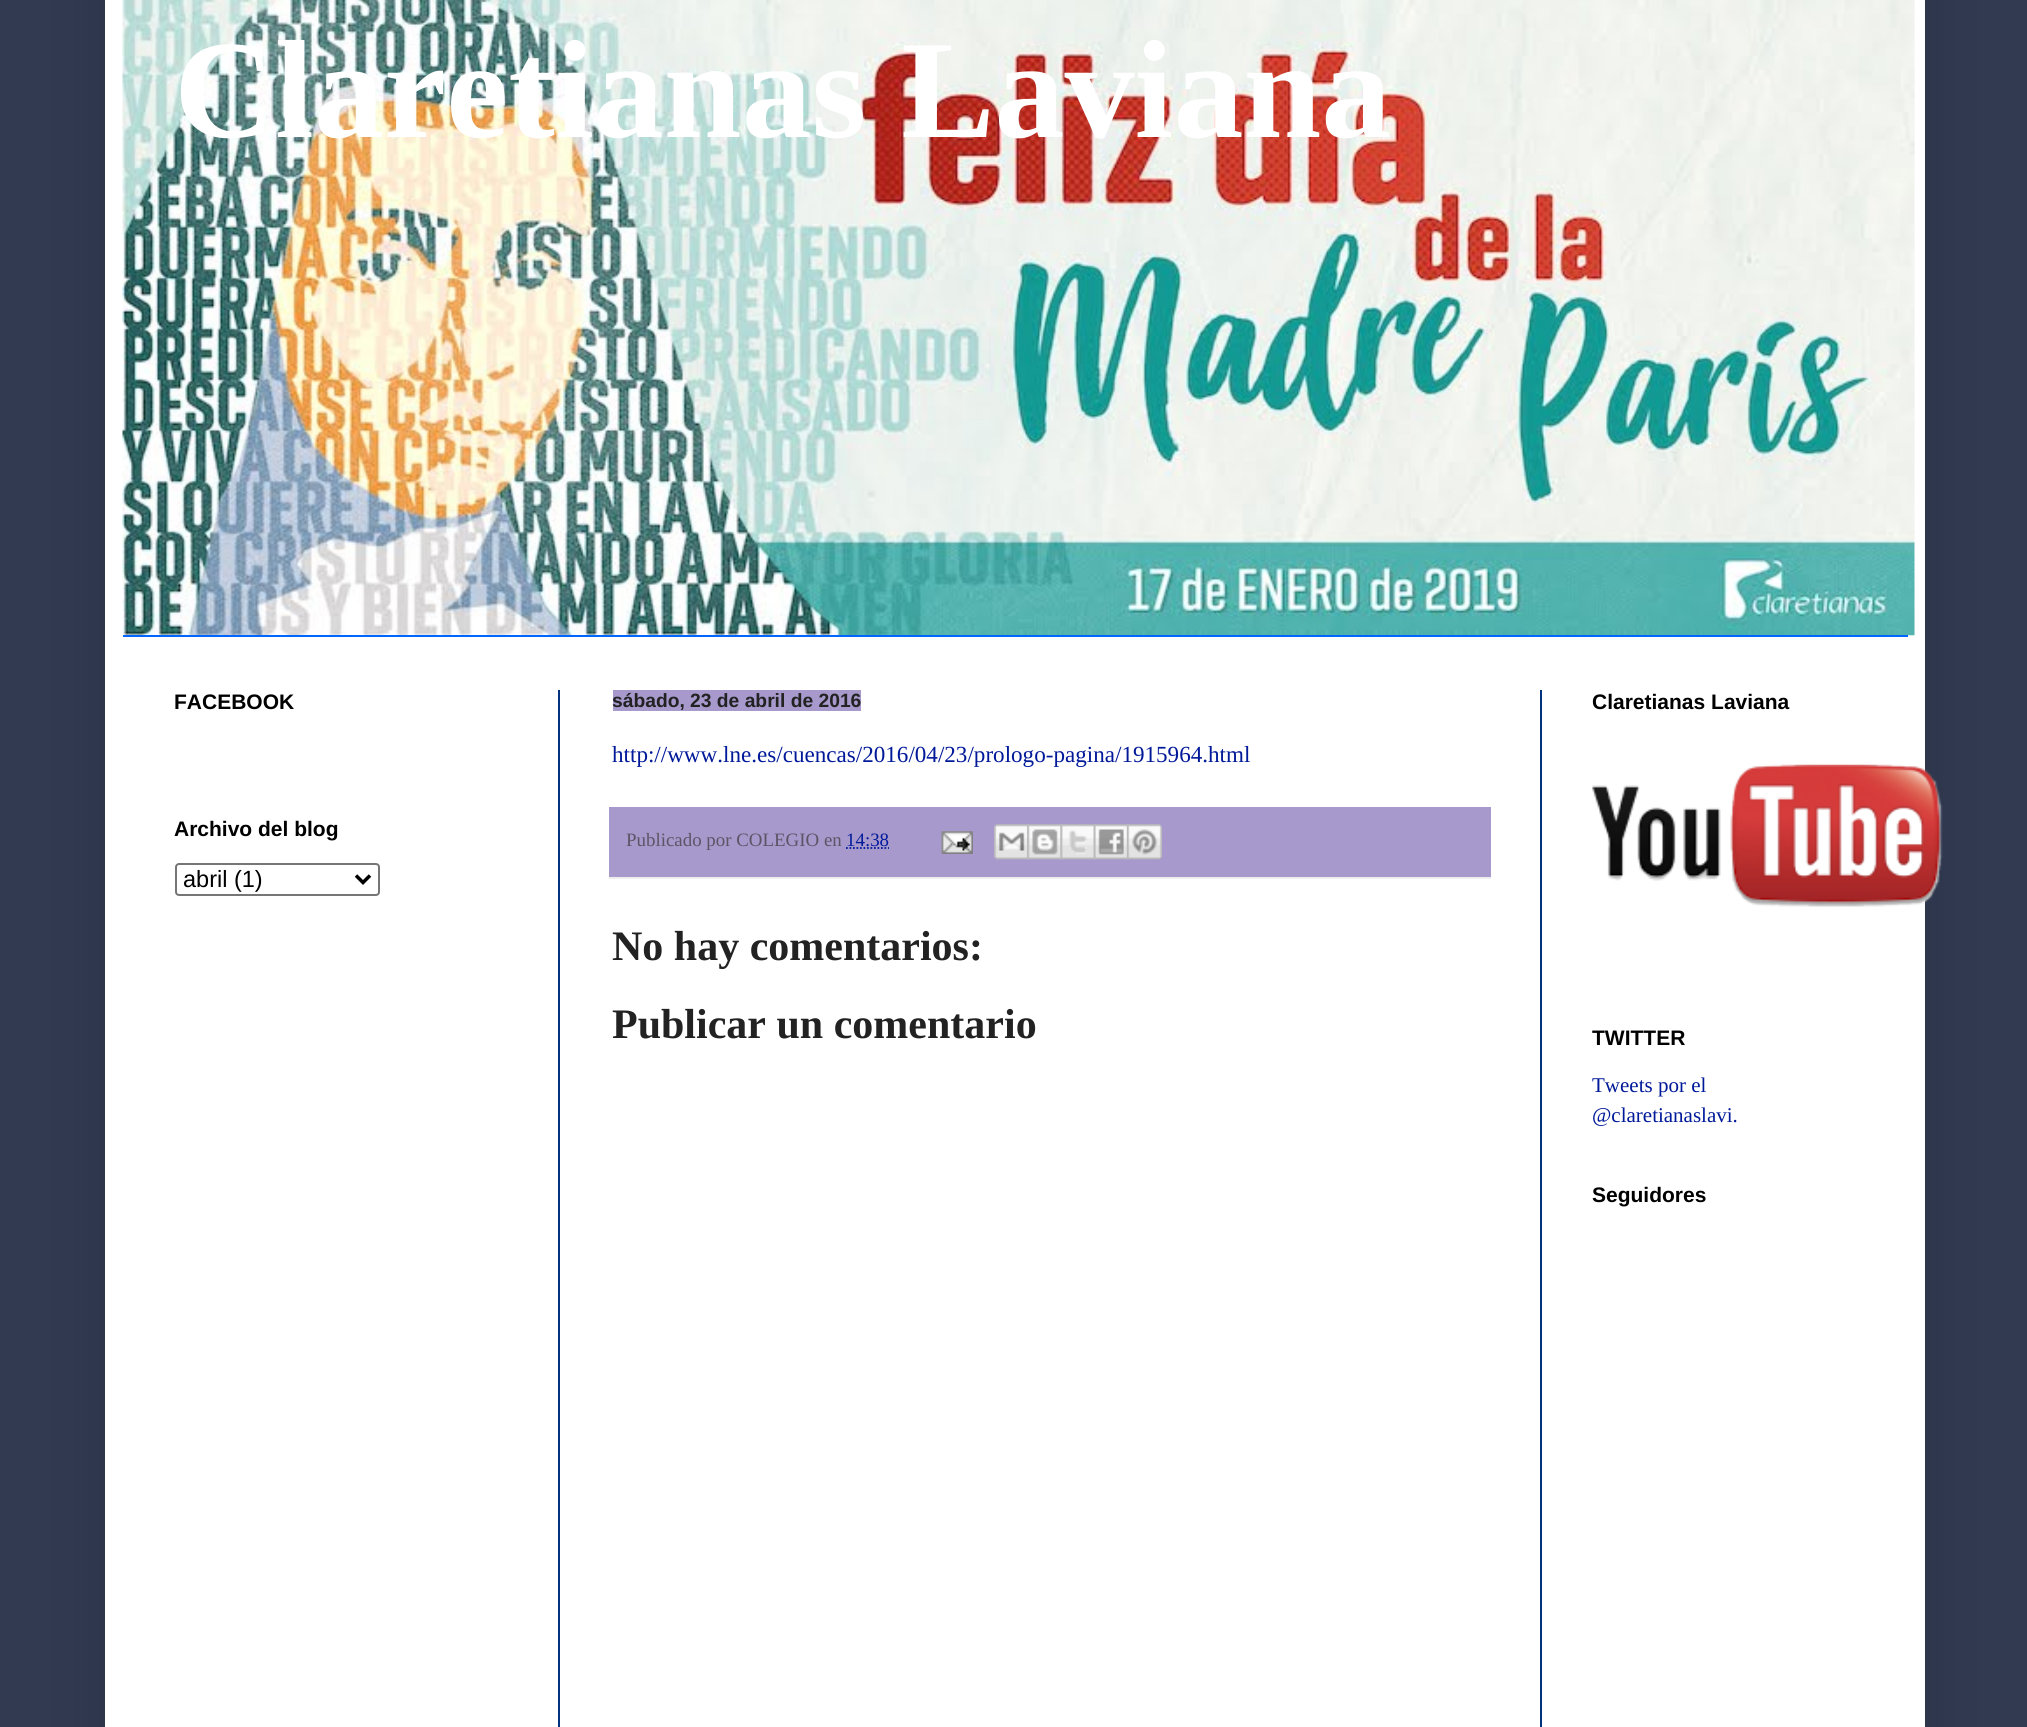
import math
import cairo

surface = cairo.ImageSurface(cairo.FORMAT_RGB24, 2027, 1727)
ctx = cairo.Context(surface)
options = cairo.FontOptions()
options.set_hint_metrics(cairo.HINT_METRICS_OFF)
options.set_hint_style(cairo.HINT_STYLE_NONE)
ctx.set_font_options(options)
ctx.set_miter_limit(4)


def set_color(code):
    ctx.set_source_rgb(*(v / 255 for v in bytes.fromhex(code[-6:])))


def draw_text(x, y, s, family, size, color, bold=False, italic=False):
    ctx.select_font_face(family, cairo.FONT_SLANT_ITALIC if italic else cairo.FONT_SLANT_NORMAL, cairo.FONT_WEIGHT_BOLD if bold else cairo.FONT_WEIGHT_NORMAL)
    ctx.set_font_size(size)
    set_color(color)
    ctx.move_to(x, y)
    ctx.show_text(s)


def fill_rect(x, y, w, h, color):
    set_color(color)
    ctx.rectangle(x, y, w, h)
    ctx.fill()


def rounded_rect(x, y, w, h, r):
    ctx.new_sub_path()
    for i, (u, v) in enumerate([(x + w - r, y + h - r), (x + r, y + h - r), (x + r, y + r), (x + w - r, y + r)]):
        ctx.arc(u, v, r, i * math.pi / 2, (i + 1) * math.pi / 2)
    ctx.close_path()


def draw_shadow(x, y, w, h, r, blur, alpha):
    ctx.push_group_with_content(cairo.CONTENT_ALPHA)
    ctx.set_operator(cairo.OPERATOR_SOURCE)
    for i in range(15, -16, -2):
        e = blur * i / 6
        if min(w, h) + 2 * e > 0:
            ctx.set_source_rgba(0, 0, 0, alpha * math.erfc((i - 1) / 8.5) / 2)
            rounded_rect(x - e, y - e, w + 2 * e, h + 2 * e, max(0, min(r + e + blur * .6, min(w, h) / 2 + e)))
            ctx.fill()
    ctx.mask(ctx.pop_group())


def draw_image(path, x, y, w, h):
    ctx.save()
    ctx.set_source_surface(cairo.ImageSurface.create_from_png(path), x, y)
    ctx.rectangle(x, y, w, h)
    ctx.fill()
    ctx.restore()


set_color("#313a51")
ctx.paint()
set_color("#000000")
draw_shadow(105, -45, 1820, 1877, 0, 35, 0.15)
fill_rect(105, 0, 1820, 1727, "#ffffff")
draw_image("assets/img1.png", 122, 0, 1793, 636)
draw_text(174, 137, "Claretianas Laviana", "Liberation Serif", 140, "#ffffff", bold=True)
fill_rect(123, 635, 1785, 2, "#0066ff")
fill_rect(558, 690, 2, 1037, "#00327f")
fill_rect(1540, 690, 2, 1037, "#00327f")
draw_text(174, 709, "FACEBOOK", "Liberation Sans", 21, "#000000", bold=True)
draw_text(174, 836, "Archivo del blog", "Liberation Sans", 21, "#000000", bold=True)
rounded_rect(176, 864, 203, 31, 3)
set_color("#767676")
ctx.stroke()
ctx.new_path()
ctx.move_to(356, 875.5)
ctx.line_to(363, 882.5)
ctx.line_to(370, 875.5)
set_color("#000000")
ctx.set_line_width(3.5)
ctx.stroke()
draw_text(183, 887, "abril (1)", "Liberation Sans", 23.5, "#000000")
fill_rect(613, 690, 248, 21, "#a799cc")
draw_text(612, 707, "sábado, 23 de abril de 2016", "Liberation Sans", 19.25, "#222222", bold=True)
draw_text(612, 762, "http://www.lne.es/cuencas/2016/04/23/prologo-pagina/1915964.html", "Liberation Serif", 23.1, "#001999")
fill_rect(609, 807, 882, 70, "#a799cc")
fill_rect(609, 877, 882, 2, "#eeeeee")
draw_text(626, 846, "Publicado por COLEGIO en", "Liberation Serif", 18.9, "#5c5566")
draw_text(846, 846, "14:38", "Liberation Serif", 18.9, "#001999")
ctx.new_path()
ctx.move_to(846, 848)
ctx.line_to(889, 848)
ctx.set_line_width(1.8)
ctx.set_dash([1.75, 1.75])
ctx.stroke()
draw_image("assets/img2.png", 941, 831, 32, 23)
draw_image("assets/img3.png", 994, 824, 35, 36)
draw_image("assets/img4.png", 1027, 824, 36, 36)
draw_image("assets/img5.png", 1060, 824, 36, 36)
draw_image("assets/img6.png", 1093, 824, 36, 36)
draw_image("assets/img7.png", 1127, 824, 35, 36)
draw_text(612, 960, "No hay comentarios:", "Liberation Serif", 42, "#222222", bold=True)
draw_text(612, 1038, "Publicar un comentario", "Liberation Serif", 42, "#222222", bold=True)
draw_text(1592, 709, "Claretianas Laviana", "Liberation Sans", 21, "#000000", bold=True)
draw_image("assets/img8.png", 1592, 764, 351, 143)
draw_text(1592, 1045, "TWITTER", "Liberation Sans", 21, "#000000", bold=True)
draw_text(1592, 1092, "Tweets por el", "Liberation Serif", 21, "#001999")
draw_text(1592, 1122, "@claretianaslavi.", "Liberation Serif", 21, "#001999")
draw_text(1592, 1202, "Seguidores", "Liberation Sans", 21, "#000000", bold=True)
surface.write_to_png("output.png")
